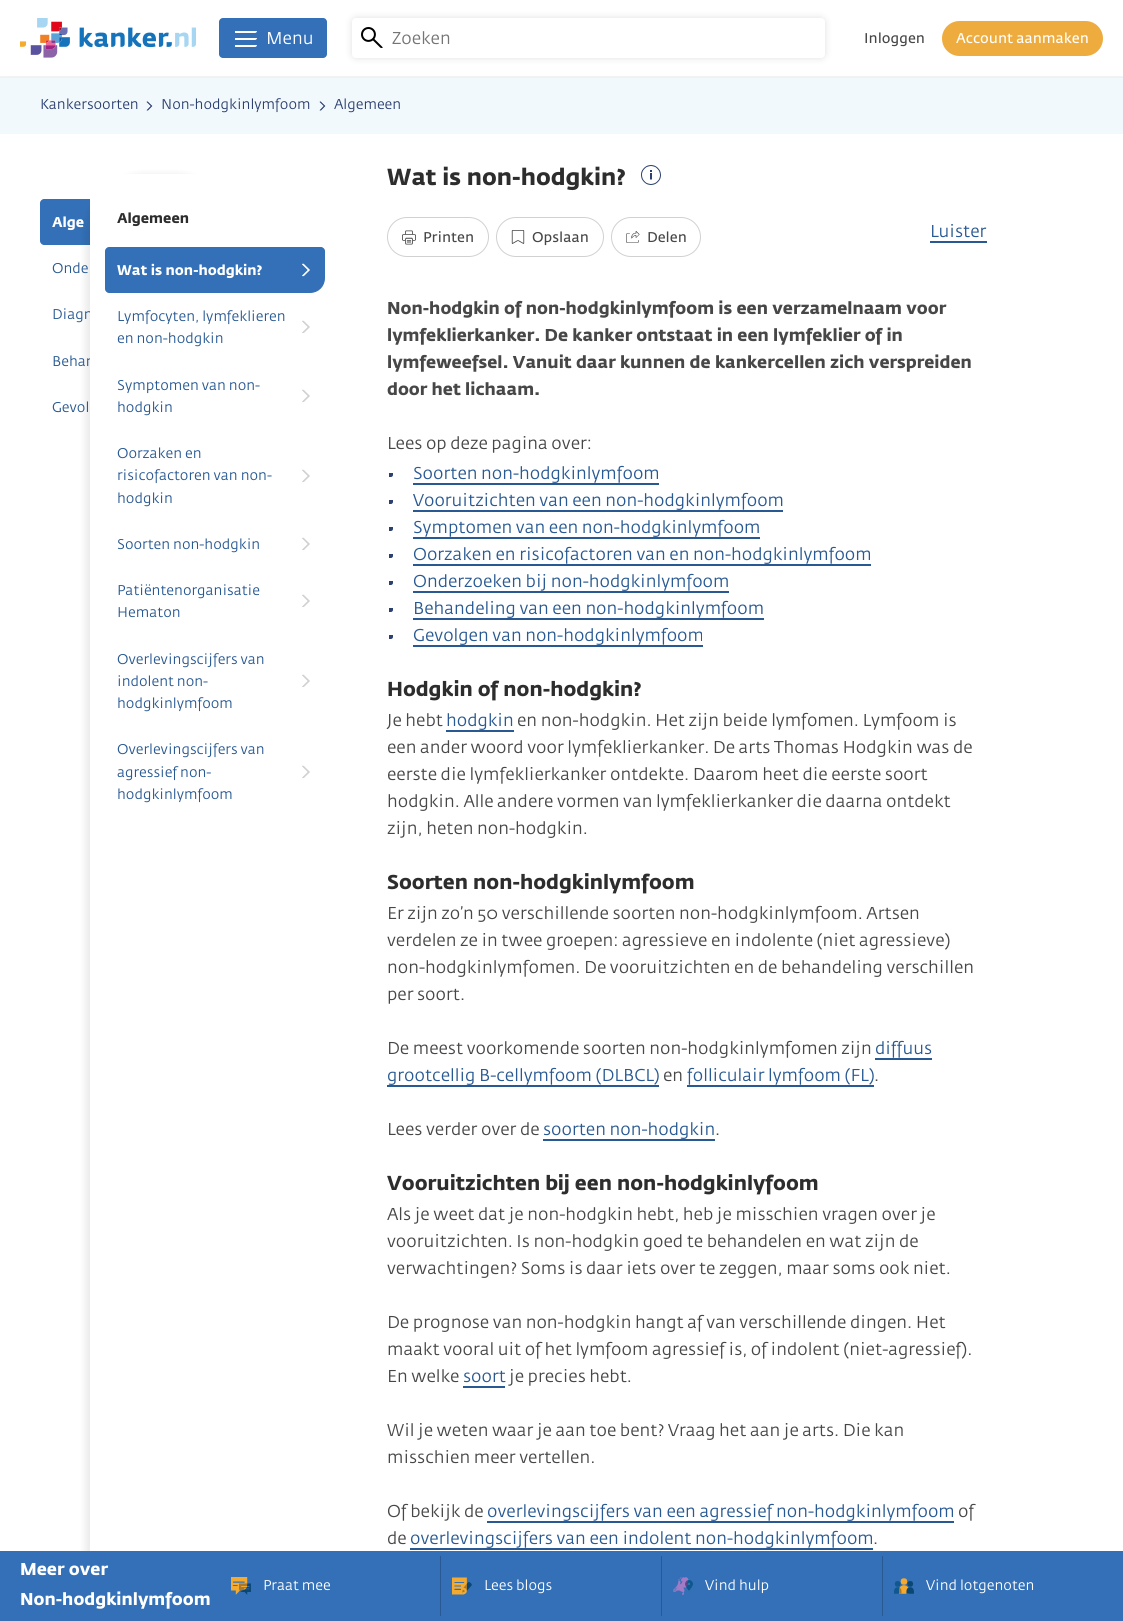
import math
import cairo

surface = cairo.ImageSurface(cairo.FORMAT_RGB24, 1123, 1621)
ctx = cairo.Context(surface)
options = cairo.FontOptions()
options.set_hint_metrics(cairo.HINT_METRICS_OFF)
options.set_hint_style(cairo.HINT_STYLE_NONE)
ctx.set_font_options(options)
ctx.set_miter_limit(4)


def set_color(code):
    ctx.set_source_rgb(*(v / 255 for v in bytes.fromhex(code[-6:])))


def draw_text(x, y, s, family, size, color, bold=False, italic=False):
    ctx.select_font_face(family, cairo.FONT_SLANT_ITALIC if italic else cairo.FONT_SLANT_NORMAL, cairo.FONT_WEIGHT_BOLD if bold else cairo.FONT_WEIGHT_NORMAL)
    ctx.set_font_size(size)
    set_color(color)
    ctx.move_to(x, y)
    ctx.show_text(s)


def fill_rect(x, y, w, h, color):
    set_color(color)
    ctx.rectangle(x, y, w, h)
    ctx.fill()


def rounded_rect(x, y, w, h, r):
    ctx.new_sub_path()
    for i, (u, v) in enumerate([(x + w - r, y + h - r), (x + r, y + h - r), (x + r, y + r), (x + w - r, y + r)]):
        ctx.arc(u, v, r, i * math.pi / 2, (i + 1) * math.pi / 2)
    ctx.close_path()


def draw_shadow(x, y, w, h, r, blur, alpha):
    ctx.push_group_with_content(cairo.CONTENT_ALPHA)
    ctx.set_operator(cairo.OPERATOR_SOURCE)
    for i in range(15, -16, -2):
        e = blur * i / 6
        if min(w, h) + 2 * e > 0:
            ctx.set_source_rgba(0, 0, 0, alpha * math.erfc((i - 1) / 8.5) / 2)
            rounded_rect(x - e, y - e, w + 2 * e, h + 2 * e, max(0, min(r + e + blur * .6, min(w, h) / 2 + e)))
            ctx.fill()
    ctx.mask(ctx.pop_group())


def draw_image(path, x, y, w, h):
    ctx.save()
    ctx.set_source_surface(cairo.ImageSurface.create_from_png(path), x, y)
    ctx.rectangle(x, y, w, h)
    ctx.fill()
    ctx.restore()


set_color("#ffffff")
ctx.paint()
fill_rect(0, 77, 1123, 57, "#f2f9fd")
ctx.save()
ctx.rectangle(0, 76, 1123, 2)
ctx.clip()
set_color("#000000")
draw_shadow(0, 0, 1123, 76, 0, 2, 0.12)
ctx.restore()
set_color("#3370b7")
rounded_rect(219, 18, 108, 40, 4)
ctx.fill()
set_color("#ffffff")
ctx.new_path()
ctx.move_to(235, 38)
ctx.line_to(257, 38)
ctx.curve_to(257, 39, 256, 40, 255, 40)
ctx.line_to(235, 40)
ctx.close_path()
ctx.fill()
ctx.new_path()
ctx.move_to(235, 31)
ctx.line_to(257, 31)
ctx.curve_to(257, 32, 256, 33, 255, 33)
ctx.line_to(235, 33)
ctx.close_path()
ctx.fill()
ctx.new_path()
ctx.move_to(235, 45)
ctx.line_to(257, 45)
ctx.curve_to(257, 46, 256, 47, 255, 47)
ctx.line_to(235, 47)
ctx.close_path()
ctx.fill()
draw_text(266, 44, "Menu", "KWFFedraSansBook", 17, "#ffffff")
draw_image("assets/img1.png", 20, 18, 176, 40)
set_color("#000000")
draw_shadow(352, 18, 473, 40, 4, 4, 0.12)
set_color("#ffffff")
rounded_rect(352, 18, 473, 40, 4)
ctx.fill()
draw_image("assets/img2.png", 361, 27, 22, 21)
draw_text(392, 44, "Zoeken", "KWFFedraSansBook", 17, "#757575")
draw_text(864, 43, "Inloggen", "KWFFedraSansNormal", 14, "#474747")
set_color("#eeac3f")
rounded_rect(942, 21, 161, 35, 17.5)
ctx.fill()
draw_text(956, 43, "Account aanmaken", "KWFFedraSansNormal", 14, "#ffffff")
draw_text(40, 109, "Kankersoorten", "KWFFedraSansBook", 14, "#2c406f")
draw_image("assets/img3.png", 146, 101, 7, 10)
draw_text(161, 109, "Non-hodgkinlymfoom", "KWFFedraSansBook", 14, "#2c406f")
draw_image("assets/img3.png", 319, 101, 7, 10)
draw_text(334, 109, "Algemeen", "KWFFedraSansBook", 14, "#2c406f")
draw_text(387, 185, "Wat is non-hodgkin?", "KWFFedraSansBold", 23, "#2d2d2d", bold=True)
draw_image("assets/img4.png", 641, 165, 20, 20)
rounded_rect(387.5, 217.5, 101, 39, 19.5)
set_color("#d1d1d1")
ctx.set_line_width(1)
ctx.stroke()
draw_image("assets/img5.png", 402, 230, 14, 15)
draw_text(423, 242, "Printen", "KWFFedraSansNormal", 14, "#474747")
rounded_rect(496.5, 217.5, 107, 39, 19.5)
set_color("#d1d1d1")
ctx.stroke()
draw_image("assets/img6.png", 511, 230, 14, 14)
draw_text(532, 242, "Opslaan", "KWFFedraSansNormal", 14, "#474747")
rounded_rect(611.5, 217.5, 89, 39, 19.5)
set_color("#d1d1d1")
ctx.stroke()
draw_image("assets/img7.png", 626, 231, 14, 12)
draw_text(647, 242, "Delen", "KWFFedraSansNormal", 14, "#474747")
draw_text(930, 237, "Luister", "KWFFedraSansBook", 17, "#285992")
fill_rect(930, 241, 57, 2, "#285992")
draw_text(387, 314, "Non-hodgkin of non-hodgkinlymfoom is een verzamelnaam voor", "KWFFedraSansBold", 17, "#474747", bold=True)
draw_text(387, 341, "lymfeklierkanker. De kanker ontstaat in een lymfeklier of in", "KWFFedraSansBold", 17, "#474747", bold=True)
draw_text(387, 368, "lymfeweefsel. Vanuit daar kunnen de kankercellen zich verspreiden", "KWFFedraSansBold", 17, "#474747", bold=True)
draw_text(387, 395, "door het lichaam.", "KWFFedraSansBold", 17, "#474747", bold=True)
draw_text(387, 449, "Lees op deze pagina over:", "KWFFedraSansBook", 17, "#474747")
set_color("#2c406f")
ctx.new_path()
ctx.move_to(389, 473)
ctx.line_to(393, 473)
ctx.line_to(393, 475)
ctx.curve_to(393, 476, 392, 477, 391, 477)
ctx.line_to(389, 477)
ctx.close_path()
ctx.fill()
draw_text(413, 479, "Soorten non-hodgkinlymfoom", "KWFFedraSansBook", 17, "#285992")
fill_rect(413, 483, 246, 2, "#285992")
set_color("#2c406f")
ctx.new_path()
ctx.move_to(389, 500)
ctx.line_to(393, 500)
ctx.line_to(393, 502)
ctx.curve_to(393, 503, 392, 504, 391, 504)
ctx.line_to(389, 504)
ctx.close_path()
ctx.fill()
draw_text(413, 506, "Vooruitzichten van een non-hodgkinlymfoom", "KWFFedraSansBook", 17, "#285992")
fill_rect(413, 510, 370, 2, "#285992")
set_color("#2c406f")
ctx.new_path()
ctx.move_to(389, 527)
ctx.line_to(393, 527)
ctx.line_to(393, 529)
ctx.curve_to(393, 530, 392, 531, 391, 531)
ctx.line_to(389, 531)
ctx.close_path()
ctx.fill()
draw_text(413, 533, "Symptomen van een non-hodgkinlymfoom", "KWFFedraSansBook", 17, "#285992")
fill_rect(413, 537, 347, 2, "#285992")
set_color("#2c406f")
ctx.new_path()
ctx.move_to(389, 554)
ctx.line_to(393, 554)
ctx.line_to(393, 556)
ctx.curve_to(393, 557, 392, 558, 391, 558)
ctx.line_to(389, 558)
ctx.close_path()
ctx.fill()
draw_text(413, 560, "Oorzaken en risicofactoren van en non-hodgkinlymfoom", "KWFFedraSansBook", 17, "#285992")
fill_rect(413, 564, 458, 2, "#285992")
set_color("#2c406f")
ctx.new_path()
ctx.move_to(389, 581)
ctx.line_to(393, 581)
ctx.line_to(393, 583)
ctx.curve_to(393, 584, 392, 585, 391, 585)
ctx.line_to(389, 585)
ctx.close_path()
ctx.fill()
draw_text(413, 587, "Onderzoeken bij non-hodgkinlymfoom", "KWFFedraSansBook", 17, "#285992")
fill_rect(413, 591, 316, 2, "#285992")
set_color("#2c406f")
ctx.new_path()
ctx.move_to(389, 608)
ctx.line_to(393, 608)
ctx.line_to(393, 610)
ctx.curve_to(393, 611, 392, 612, 391, 612)
ctx.line_to(389, 612)
ctx.close_path()
ctx.fill()
draw_text(413, 614, "Behandeling van een non-hodgkinlymfoom", "KWFFedraSansBook", 17, "#285992")
fill_rect(413, 618, 351, 2, "#285992")
set_color("#2c406f")
ctx.new_path()
ctx.move_to(389, 635)
ctx.line_to(393, 635)
ctx.line_to(393, 637)
ctx.curve_to(393, 638, 392, 639, 391, 639)
ctx.line_to(389, 639)
ctx.close_path()
ctx.fill()
draw_text(413, 641, "Gevolgen van non-hodgkinlymfoom", "KWFFedraSansBook", 17, "#285992")
fill_rect(413, 645, 290, 2, "#285992")
draw_text(387, 696, "Hodgkin of non-hodgkin?", "KWFFedraSansBold", 20, "#2d2d2d", bold=True)
draw_text(387, 726, "Je hebt", "KWFFedraSansBook", 17, "#474747")
draw_text(446, 726, "hodgkin", "KWFFedraSansBook", 17, "#285992")
fill_rect(446, 730, 68, 2, "#285992")
draw_text(517, 726, "en non-hodgkin. Het zijn beide lymfomen. Lymfoom is", "KWFFedraSansBook", 17, "#474747")
draw_text(387, 753, "een ander woord voor lymfeklierkanker. De arts Thomas Hodgkin was de", "KWFFedraSansBook", 17, "#474747")
draw_text(387, 780, "eerste die lymfeklierkanker ontdekte. Daarom heet die eerste soort", "KWFFedraSansBook", 17, "#474747")
draw_text(387, 807, "hodgkin. Alle andere vormen van lymfeklierkanker die daarna ontdekt", "KWFFedraSansBook", 17, "#474747")
draw_text(387, 834, "zijn, heten non-hodgkin.", "KWFFedraSansBook", 17, "#474747")
draw_text(387, 889, "Soorten non-hodgkinlymfoom", "KWFFedraSansBold", 20, "#2d2d2d", bold=True)
draw_text(387, 919, "Er zijn zo’n 50 verschillende soorten non-hodgkinlymfoom. Artsen", "KWFFedraSansBook", 17, "#474747")
draw_text(387, 946, "verdelen ze in twee groepen: agressieve en indolente (niet agressieve)", "KWFFedraSansBook", 17, "#474747")
draw_text(387, 973, "non-hodgkinlymfomen. De vooruitzichten en de behandeling verschillen", "KWFFedraSansBook", 17, "#474747")
draw_text(387, 1000, "per soort.", "KWFFedraSansBook", 17, "#474747")
draw_text(387, 1054, "De meest voorkomende soorten non-hodgkinlymfomen zijn", "KWFFedraSansBook", 17, "#474747")
draw_text(875, 1054, "diffuus", "KWFFedraSansBook", 17, "#285992")
fill_rect(875, 1058, 57, 2, "#285992")
draw_text(387, 1081, "grootcellig B-cellymfoom (DLBCL)", "KWFFedraSansBook", 17, "#285992")
fill_rect(387, 1085, 272, 2, "#285992")
draw_text(663, 1081, "en", "KWFFedraSansBook", 17, "#474747")
draw_text(687, 1081, "folliculair lymfoom (FL)", "KWFFedraSansBook", 17, "#285992")
fill_rect(687, 1085, 187, 2, "#285992")
draw_text(874, 1081, ".", "KWFFedraSansBook", 17, "#474747")
draw_text(387, 1135, "Lees verder over de", "KWFFedraSansBook", 17, "#474747")
draw_text(543, 1135, "soorten non-hodgkin", "KWFFedraSansBook", 17, "#285992")
fill_rect(543, 1139, 172, 2, "#285992")
draw_text(715, 1135, ".", "KWFFedraSansBook", 17, "#474747")
draw_text(387, 1190, "Vooruitzichten bij een non-hodgkinlyfoom", "KWFFedraSansBold", 20, "#2d2d2d", bold=True)
draw_text(387, 1220, "Als je weet dat je non-hodgkin hebt, heb je misschien vragen over je", "KWFFedraSansBook", 17, "#474747")
draw_text(387, 1247, "vooruitzichten. Is non-hodgkin goed te behandelen en wat zijn de", "KWFFedraSansBook", 17, "#474747")
draw_text(387, 1274, "verwachtingen? Soms is daar iets over te zeggen, maar soms ook niet.", "KWFFedraSansBook", 17, "#474747")
draw_text(387, 1328, "De prognose van non-hodgkin hangt af van verschillende dingen. Het", "KWFFedraSansBook", 17, "#474747")
draw_text(387, 1355, "maakt vooral uit of het lymfoom agressief is, of indolent (niet-agressief).", "KWFFedraSansBook", 17, "#474747")
draw_text(387, 1382, "En welke", "KWFFedraSansBook", 17, "#474747")
draw_text(463, 1382, "soort", "KWFFedraSansBook", 17, "#285992")
fill_rect(463, 1386, 42, 2, "#285992")
draw_text(509, 1382, "je precies hebt.", "KWFFedraSansBook", 17, "#474747")
draw_text(387, 1436, "Wil je weten waar je aan toe bent? Vraag het aan je arts. Die kan", "KWFFedraSansBook", 17, "#474747")
draw_text(387, 1463, "misschien meer vertellen.", "KWFFedraSansBook", 17, "#474747")
draw_text(387, 1517, "Of bekijk de", "KWFFedraSansBook", 17, "#474747")
draw_text(487, 1517, "overlevingscijfers van een agressief non-hodgkinlymfoom", "KWFFedraSansBook", 17, "#285992")
fill_rect(487, 1521, 467, 2, "#285992")
draw_text(958, 1517, "of", "KWFFedraSansBook", 17, "#474747")
draw_text(387, 1544, "de", "KWFFedraSansBook", 17, "#474747")
draw_text(410, 1544, "overlevingscijfers van een indolent non-hodgkinlymfoom", "KWFFedraSansBook", 17, "#285992")
fill_rect(410, 1548, 463, 2, "#285992")
draw_text(873, 1544, ".", "KWFFedraSansBook", 17, "#474747")
set_color("#3370b7")
ctx.new_path()
ctx.move_to(44, 199)
ctx.line_to(286, 199)
ctx.curve_to(288, 199, 290, 201, 290, 203)
ctx.line_to(290, 230)
ctx.curve_to(290, 238.5, 283.5, 245, 275, 245)
ctx.line_to(44, 245)
ctx.curve_to(42, 245, 40, 243, 40, 241)
ctx.line_to(40, 203)
ctx.curve_to(40, 201, 42, 199, 44, 199)
ctx.close_path()
ctx.fill()
draw_text(52, 319, "Diagn", "KWFFedraSansBook", 14, "#285992")
draw_text(52, 366, "Behan", "KWFFedraSansBook", 14, "#285992")
fill_rect(90, 199, 200, 167, "#ffffff")
ctx.save()
ctx.set_fill_rule(cairo.FILL_RULE_EVEN_ODD)
ctx.new_path()
ctx.move_to(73, 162)
ctx.line_to(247, 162)
ctx.line_to(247, 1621)
ctx.line_to(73, 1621)
ctx.close_path()
ctx.move_to(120, 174)
ctx.line_to(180, 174)
ctx.curve_to(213, 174, 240, 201, 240, 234)
ctx.line_to(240, 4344)
ctx.line_to(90, 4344)
ctx.line_to(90, 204)
ctx.curve_to(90, 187.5, 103.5, 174, 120, 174)
ctx.close_path()
ctx.clip()
set_color("#000000")
draw_shadow(85, 174, 150, 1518, 60, 3.5, 0.08)
ctx.restore()
fill_rect(0, 1551, 1123, 70, "#3370b7")
draw_text(20, 1575, "Meer over", "KWFFedraSansBold", 17, "#ffffff", bold=True)
draw_text(20, 1605, "Non-hodgkinlymfoom", "KWFFedraSansBold", 17, "#ffffff", bold=True)
draw_image("assets/img8.png", 231, 1577, 20, 18)
draw_text(263, 1590, "Praat mee", "KWFFedraSansBook", 14, "#ffffff")
fill_rect(440, 1556, 1, 60, "#285992")
draw_image("assets/img9.png", 452, 1577, 20, 18)
draw_text(484, 1590, "Lees blogs", "KWFFedraSansBook", 14, "#ffffff")
fill_rect(661, 1556, 1, 60, "#285992")
draw_image("assets/img10.png", 673, 1577, 20, 18)
draw_text(705, 1590, "Vind hulp", "KWFFedraSansBook", 14, "#ffffff")
fill_rect(882, 1556, 1, 60, "#285992")
draw_image("assets/img11.png", 894, 1578, 20, 16)
draw_text(926, 1590, "Vind lotgenoten", "KWFFedraSansBook", 14, "#ffffff")
draw_text(52, 227, "Alge", "KWFFedraSansBold", 14, "#ffffff", bold=True)
ctx.new_path()
ctx.move_to(120, 174)
ctx.line_to(340, 174)
ctx.line_to(340, 847)
ctx.line_to(90, 847)
ctx.line_to(90, 204)
ctx.curve_to(90, 187.5, 103.5, 174, 120, 174)
ctx.close_path()
ctx.fill()
draw_text(117, 223, "Algemeen", "KWFFedraSansBold", 14, "#2d2d2d", bold=True)
set_color("#3370b7")
ctx.new_path()
ctx.move_to(109, 247)
ctx.line_to(321, 247)
ctx.curve_to(323, 247, 325, 249, 325, 251)
ctx.line_to(325, 278)
ctx.curve_to(325, 286.5, 318.5, 293, 310, 293)
ctx.line_to(109, 293)
ctx.curve_to(107, 293, 105, 291, 105, 289)
ctx.line_to(105, 251)
ctx.curve_to(105, 249, 107, 247, 109, 247)
ctx.close_path()
ctx.fill()
draw_text(117, 275, "Wat is non-hodgkin?", "KWFFedraSansBold", 14, "#ffffff", bold=True)
draw_image("assets/img12.png", 302, 263, 8, 14)
draw_text(117, 321, "Lymfocyten, lymfeklieren", "KWFFedraSansBook", 14, "#285992")
draw_image("assets/img13.png", 302, 320, 8, 13)
draw_text(117, 343, "en non-hodgkin", "KWFFedraSansBook", 14, "#285992")
draw_text(117, 390, "Symptomen van non-", "KWFFedraSansBook", 14, "#285992")
draw_image("assets/img13.png", 302, 389, 8, 13)
draw_text(117, 412, "hodgkin", "KWFFedraSansBook", 14, "#285992")
draw_text(117, 458, "Oorzaken en", "KWFFedraSansBook", 14, "#285992")
draw_text(117, 480, "risicofactoren van non-", "KWFFedraSansBook", 14, "#285992")
draw_image("assets/img13.png", 302, 469, 8, 13)
draw_text(117, 503, "hodgkin", "KWFFedraSansBook", 14, "#285992")
draw_text(117, 549, "Soorten non-hodgkin", "KWFFedraSansBook", 14, "#285992")
draw_image("assets/img13.png", 302, 537, 8, 13)
draw_text(117, 595, "Patiëntenorganisatie", "KWFFedraSansBook", 14, "#285992")
draw_image("assets/img13.png", 302, 594, 8, 13)
draw_text(117, 617, "Hematon", "KWFFedraSansBook", 14, "#285992")
draw_text(117, 664, "Overlevingscijfers van", "KWFFedraSansBook", 14, "#285992")
draw_text(117, 686, "indolent non-", "KWFFedraSansBook", 14, "#285992")
draw_image("assets/img13.png", 302, 674, 8, 13)
draw_text(117, 708, "hodgkinlymfoom", "KWFFedraSansBook", 14, "#285992")
draw_text(117, 754, "Overlevingscijfers van", "KWFFedraSansBook", 14, "#285992")
draw_text(117, 777, "agressief non-", "KWFFedraSansBook", 14, "#285992")
draw_image("assets/img14.png", 302, 765, 8, 13)
draw_text(117, 799, "hodgkinlymfoom", "KWFFedraSansBook", 14, "#285992")
draw_text(52, 273, "Onde", "KWFFedraSansBook", 14, "#285992")
draw_text(52, 412, "Gevol", "KWFFedraSansBook", 14, "#285992")
surface.write_to_png("output.png")
